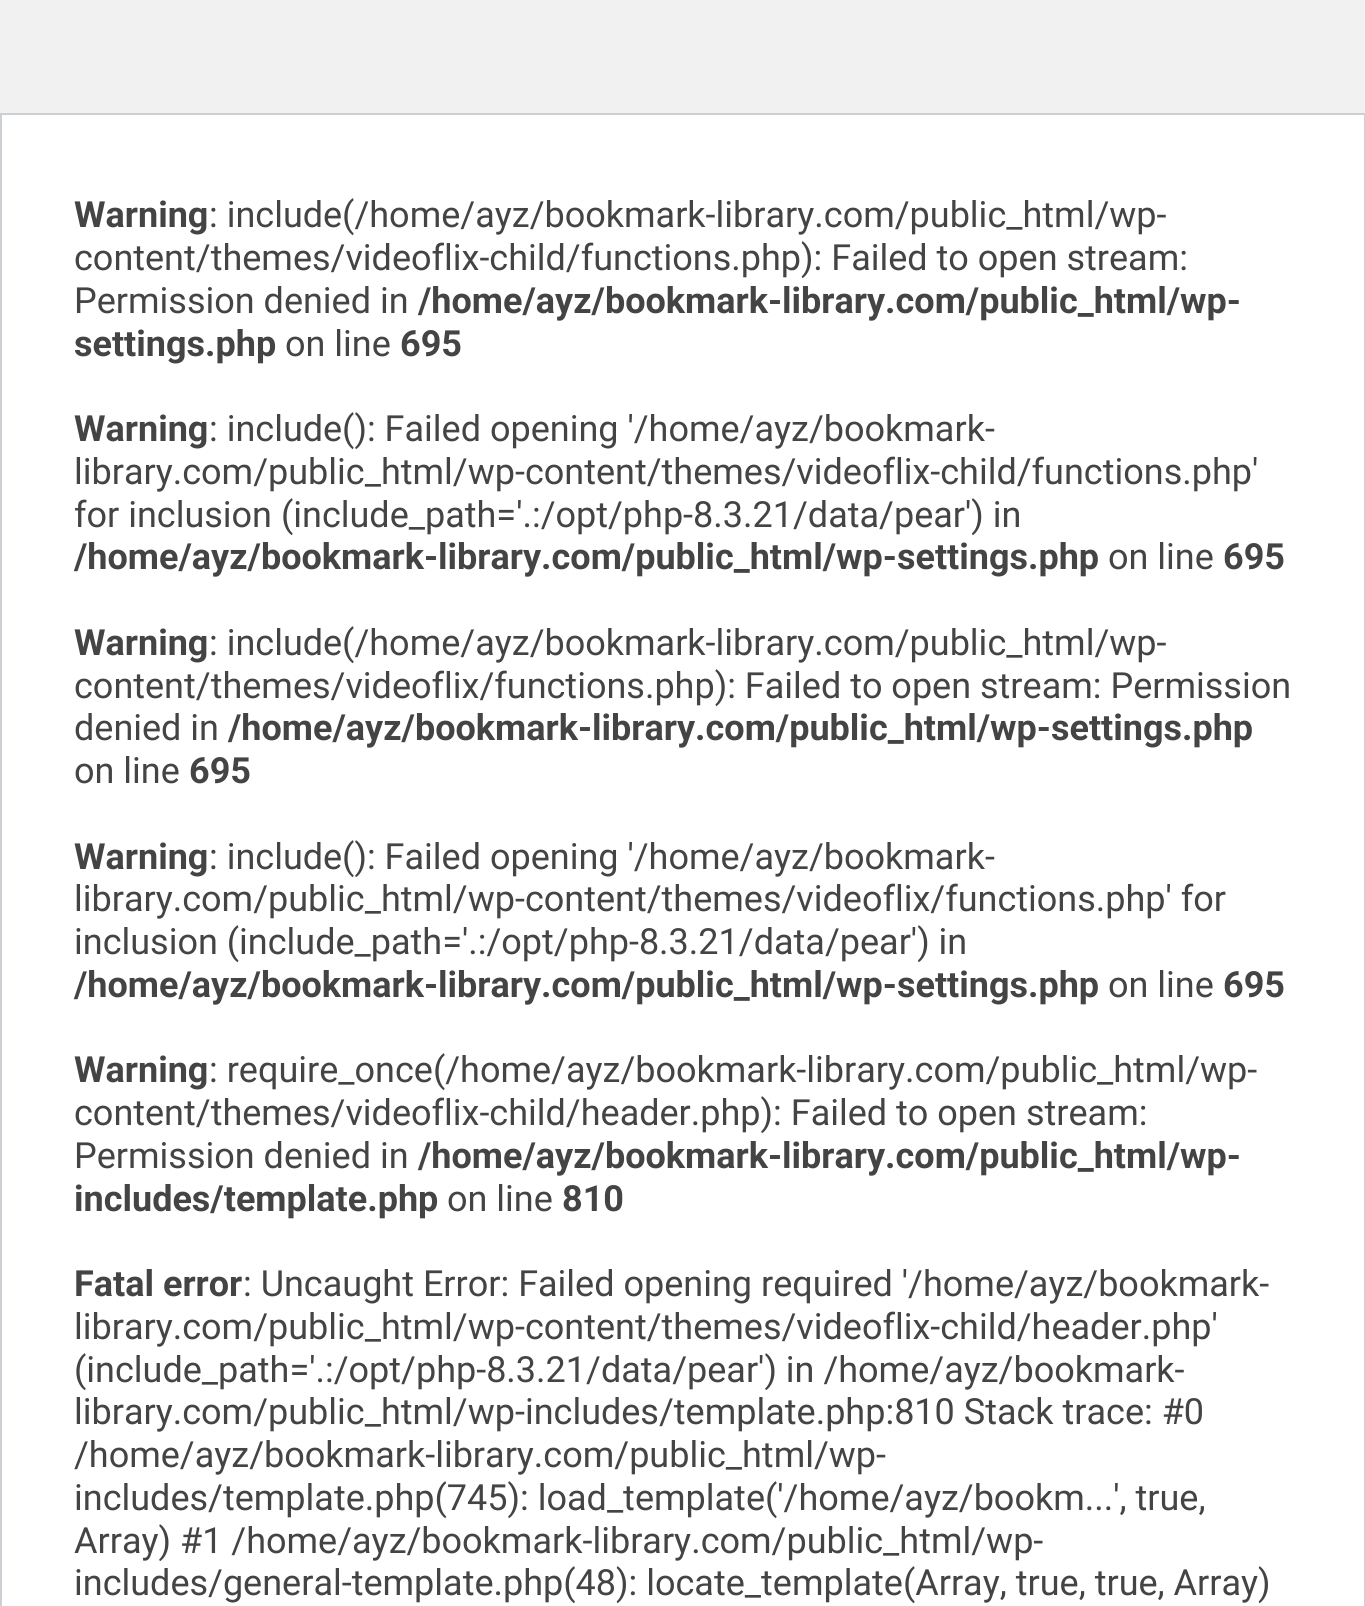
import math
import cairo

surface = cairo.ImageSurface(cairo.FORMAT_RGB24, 1365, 1606)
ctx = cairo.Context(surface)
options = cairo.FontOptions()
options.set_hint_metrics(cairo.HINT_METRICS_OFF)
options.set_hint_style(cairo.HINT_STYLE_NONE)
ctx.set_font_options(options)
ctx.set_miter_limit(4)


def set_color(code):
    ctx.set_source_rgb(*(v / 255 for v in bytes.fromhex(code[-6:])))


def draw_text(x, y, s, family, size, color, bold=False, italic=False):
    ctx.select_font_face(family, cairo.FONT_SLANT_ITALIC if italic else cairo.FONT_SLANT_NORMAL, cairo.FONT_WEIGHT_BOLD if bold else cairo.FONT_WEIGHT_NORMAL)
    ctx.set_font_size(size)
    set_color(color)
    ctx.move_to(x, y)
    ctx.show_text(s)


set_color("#f1f1f1")
ctx.paint()
set_color("#ffffff")
ctx.rectangle(1, 114, 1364, 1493)
ctx.fill_preserve()
set_color("#ccd0d4")
ctx.stroke()
draw_text(74, 227, "Warning", "Roboto", 36, "#444444", bold=True)
draw_text(209, 227, ": include(/home/ayz/bookmark-library.com/public_html/wp-", "Roboto", 36, "#444444")
draw_text(74, 270, "content/themes/videoflix-child/functions.php): Failed to open stream:", "Roboto", 36, "#444444")
draw_text(74, 313, "Permission denied in", "Roboto", 36, "#444444")
draw_text(418, 313, "/home/ayz/bookmark-library.com/public_html/wp-", "Roboto", 36, "#444444", bold=True)
draw_text(74, 356, "settings.php", "Roboto", 36, "#444444", bold=True)
draw_text(285, 356, "on line", "Roboto", 36, "#444444")
draw_text(400, 356, "695", "Roboto", 36, "#444444", bold=True)
draw_text(74, 441, "Warning", "Roboto", 36, "#444444", bold=True)
draw_text(209, 441, ": include(): Failed opening '/home/ayz/bookmark-", "Roboto", 36, "#444444")
draw_text(74, 484, "library.com/public_html/wp-content/themes/videoflix-child/functions.php'", "Roboto", 36, "#444444")
draw_text(74, 527, "for inclusion (include_path='.:/opt/php-8.3.21/data/pear') in", "Roboto", 36, "#444444")
draw_text(74, 569, "/home/ayz/bookmark-library.com/public_html/wp-settings.php", "Roboto", 36, "#444444", bold=True)
draw_text(1108, 569, "on line", "Roboto", 36, "#444444")
draw_text(1223, 569, "695", "Roboto", 36, "#444444", bold=True)
draw_text(74, 655, "Warning", "Roboto", 36, "#444444", bold=True)
draw_text(209, 655, ": include(/home/ayz/bookmark-library.com/public_html/wp-", "Roboto", 36, "#444444")
draw_text(74, 698, "content/themes/videoflix/functions.php): Failed to open stream: Permission", "Roboto", 36, "#444444")
draw_text(74, 740, "denied in", "Roboto", 36, "#444444")
draw_text(228, 740, "/home/ayz/bookmark-library.com/public_html/wp-settings.php", "Roboto", 36, "#444444", bold=True)
draw_text(74, 783, "on line", "Roboto", 36, "#444444")
draw_text(189, 783, "695", "Roboto", 36, "#444444", bold=True)
draw_text(74, 869, "Warning", "Roboto", 36, "#444444", bold=True)
draw_text(209, 869, ": include(): Failed opening '/home/ayz/bookmark-", "Roboto", 36, "#444444")
draw_text(74, 911, "library.com/public_html/wp-content/themes/videoflix/functions.php' for", "Roboto", 36, "#444444")
draw_text(74, 954, "inclusion (include_path='.:/opt/php-8.3.21/data/pear') in", "Roboto", 36, "#444444")
draw_text(74, 997, "/home/ayz/bookmark-library.com/public_html/wp-settings.php", "Roboto", 36, "#444444", bold=True)
draw_text(1108, 997, "on line", "Roboto", 36, "#444444")
draw_text(1223, 997, "695", "Roboto", 36, "#444444", bold=True)
draw_text(74, 1082, "Warning", "Roboto", 36, "#444444", bold=True)
draw_text(209, 1082, ": require_once(/home/ayz/bookmark-library.com/public_html/wp-", "Roboto", 36, "#444444")
draw_text(74, 1125, "content/themes/videoflix-child/header.php): Failed to open stream:", "Roboto", 36, "#444444")
draw_text(74, 1168, "Permission denied in", "Roboto", 36, "#444444")
draw_text(418, 1168, "/home/ayz/bookmark-library.com/public_html/wp-", "Roboto", 36, "#444444", bold=True)
draw_text(74, 1211, "includes/template.php", "Roboto", 36, "#444444", bold=True)
draw_text(447, 1211, "on line", "Roboto", 36, "#444444")
draw_text(562, 1211, "810", "Roboto", 36, "#444444", bold=True)
draw_text(74, 1296, "Fatal error", "Roboto", 36, "#444444", bold=True)
draw_text(243, 1296, ": Uncaught Error: Failed opening required '/home/ayz/bookmark-", "Roboto", 36, "#444444")
draw_text(74, 1339, "library.com/public_html/wp-content/themes/videoflix-child/header.php'", "Roboto", 36, "#444444")
draw_text(74, 1382, "(include_path='.:/opt/php-8.3.21/data/pear') in /home/ayz/bookmark-", "Roboto", 36, "#444444")
draw_text(74, 1424, "library.com/public_html/wp-includes/template.php:810 Stack trace: #0", "Roboto", 36, "#444444")
draw_text(74, 1467, "/home/ayz/bookmark-library.com/public_html/wp-", "Roboto", 36, "#444444")
draw_text(74, 1510, "includes/template.php(745): load_template('/home/ayz/bookm...', true,", "Roboto", 36, "#444444")
draw_text(74, 1553, "Array) #1 /home/ayz/bookmark-library.com/public_html/wp-", "Roboto", 36, "#444444")
draw_text(74, 1595, "includes/general-template.php(48): locate_template(Array, true, true, Array)", "Roboto", 36, "#444444")
surface.write_to_png("output.png")
